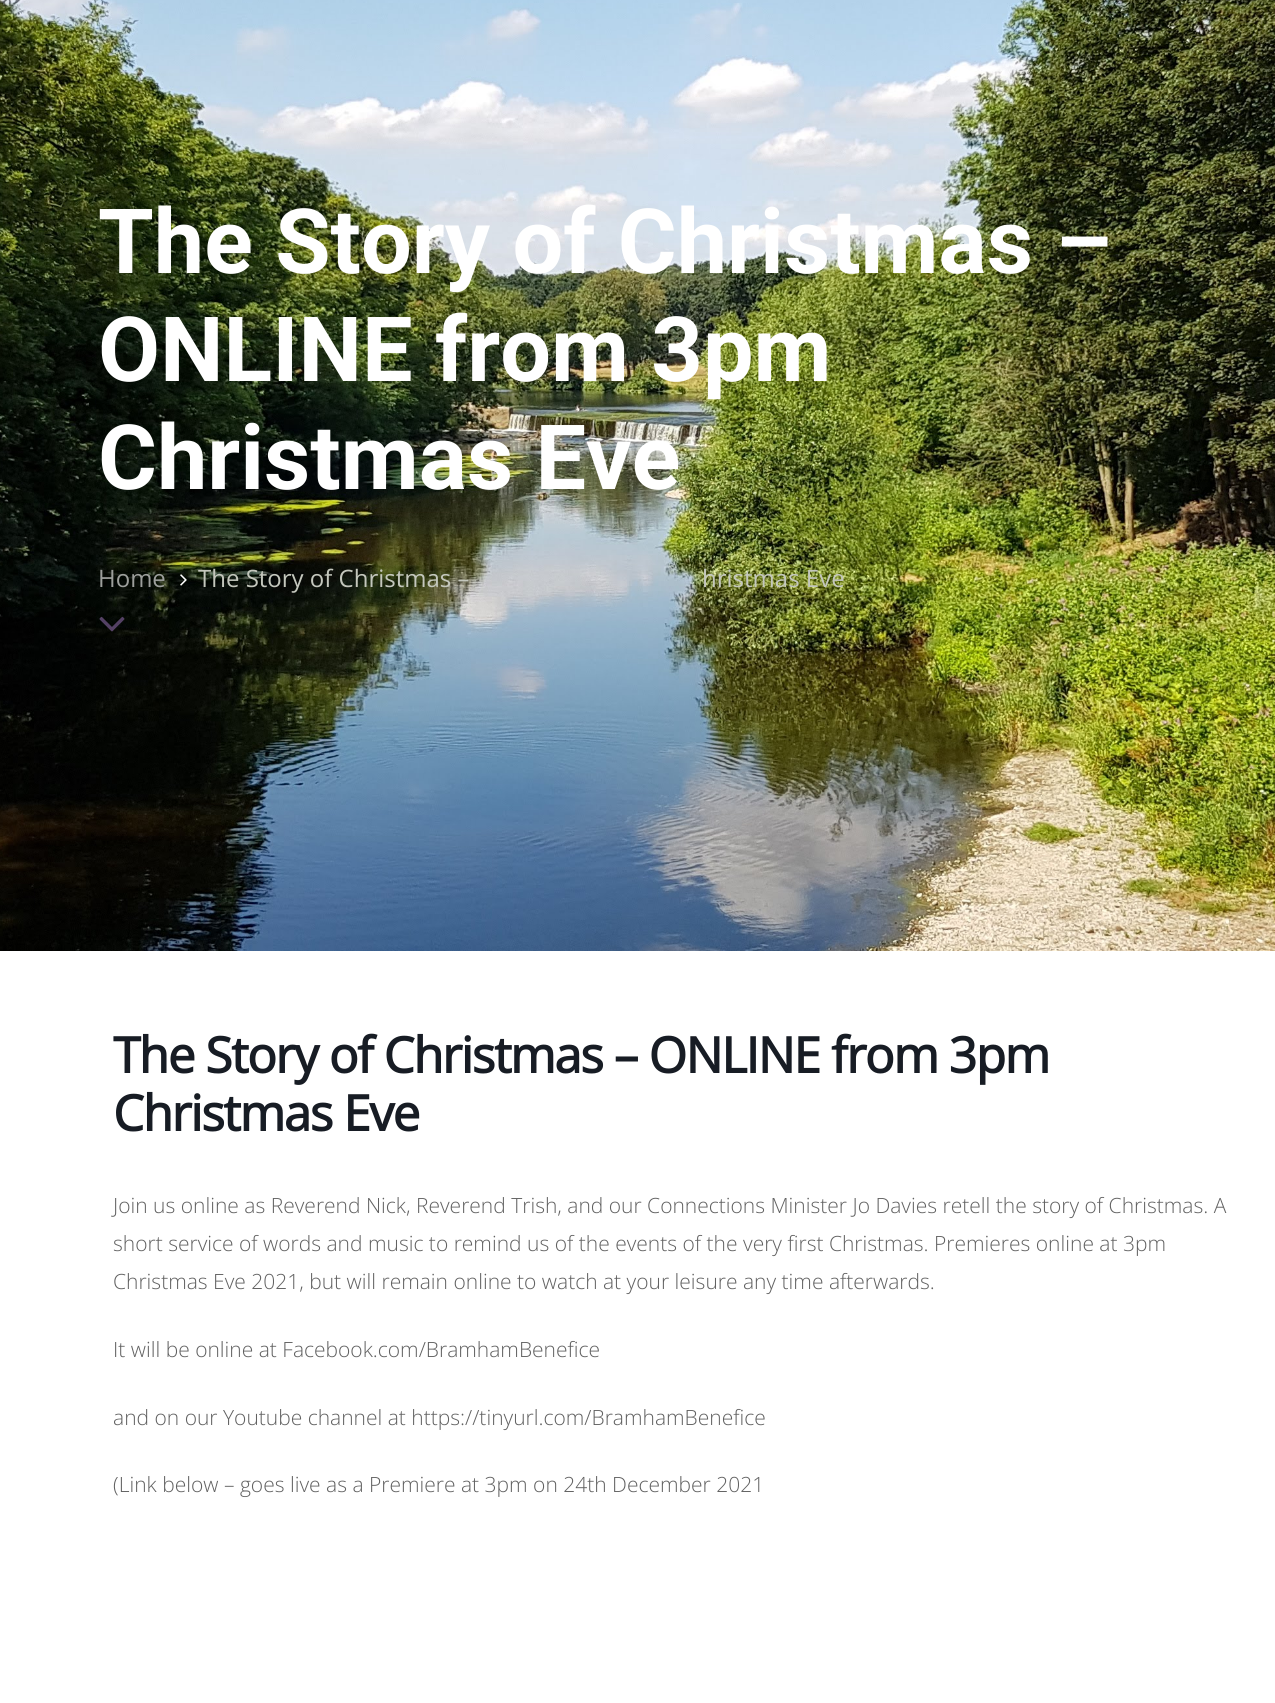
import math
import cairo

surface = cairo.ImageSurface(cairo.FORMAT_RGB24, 1275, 1703)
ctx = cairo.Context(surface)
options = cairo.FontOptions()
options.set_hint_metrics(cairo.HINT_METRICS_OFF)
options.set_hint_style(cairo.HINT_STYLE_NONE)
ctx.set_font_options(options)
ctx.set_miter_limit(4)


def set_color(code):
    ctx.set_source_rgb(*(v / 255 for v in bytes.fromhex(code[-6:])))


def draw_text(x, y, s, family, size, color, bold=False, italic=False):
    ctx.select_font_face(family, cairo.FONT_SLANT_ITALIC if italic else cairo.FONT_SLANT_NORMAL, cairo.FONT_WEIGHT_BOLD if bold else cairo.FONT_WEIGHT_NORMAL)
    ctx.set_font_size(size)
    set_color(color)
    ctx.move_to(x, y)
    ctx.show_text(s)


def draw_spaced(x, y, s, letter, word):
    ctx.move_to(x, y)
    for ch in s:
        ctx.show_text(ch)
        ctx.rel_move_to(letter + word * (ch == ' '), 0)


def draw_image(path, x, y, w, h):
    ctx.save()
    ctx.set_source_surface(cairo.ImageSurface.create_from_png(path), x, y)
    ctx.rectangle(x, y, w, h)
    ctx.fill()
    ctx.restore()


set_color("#ffffff")
ctx.paint()
draw_image("assets/img1.png", 0, 0, 1275, 951)
draw_text(98, 273, "The Story of Christmas –", "Roboto", 90, "#ffffff", bold=True)
draw_text(98, 381, "ONLINE from 3pm", "Roboto", 90, "#ffffff", bold=True)
draw_text(98, 489, "Christmas Eve", "Roboto", 90, "#ffffff", bold=True)
draw_text(98, 587, "Home", "Open Sans", 24, "#9d9f9c")
draw_image("assets/img2.png", 180, 574, 7, 12)
draw_text(198, 587, "The Story of Christmas –", "Open Sans", 24, "#c4c7bd")
draw_text(702, 587, "hristmas Eve", "Open Sans", 24, "#c4c7bd")
draw_image("assets/img3.png", 99, 616, 26, 16)
ctx.select_font_face("Open Sans", cairo.FONT_SLANT_NORMAL, cairo.FONT_WEIGHT_BOLD)
ctx.set_font_size(49.5)
set_color("#171c24")
draw_spaced(113, 1073, "The Story of Christmas – ONLINE from 3pm", -1.5, 0)
draw_spaced(113, 1131, "Christmas Eve", -1.5, 0)
draw_text(113, 1213, "Join us online as Reverend Nick, Reverend Trish, and our Connections Minister Jo Davies retell the story of Christmas. A", "Open Sans Light", 21, "#616161")
draw_text(113, 1251, "short service of words and music to remind us of the events of the very first Christmas. Premieres online at 3pm", "Open Sans Light", 21, "#616161")
draw_text(113, 1289, "Christmas Eve 2021, but will remain online to watch at your leisure any time afterwards.", "Open Sans Light", 21, "#616161")
draw_text(113, 1357, "It will be online at Facebook.com/BramhamBenefice", "Open Sans Light", 21, "#616161")
draw_text(113, 1425, "and on our Youtube channel at https://tinyurl.com/BramhamBenefice", "Open Sans Light", 21, "#616161")
draw_text(113, 1492, "(Link below – goes live as a Premiere at 3pm on 24th December 2021", "Open Sans Light", 21, "#616161")
surface.write_to_png("output.png")
